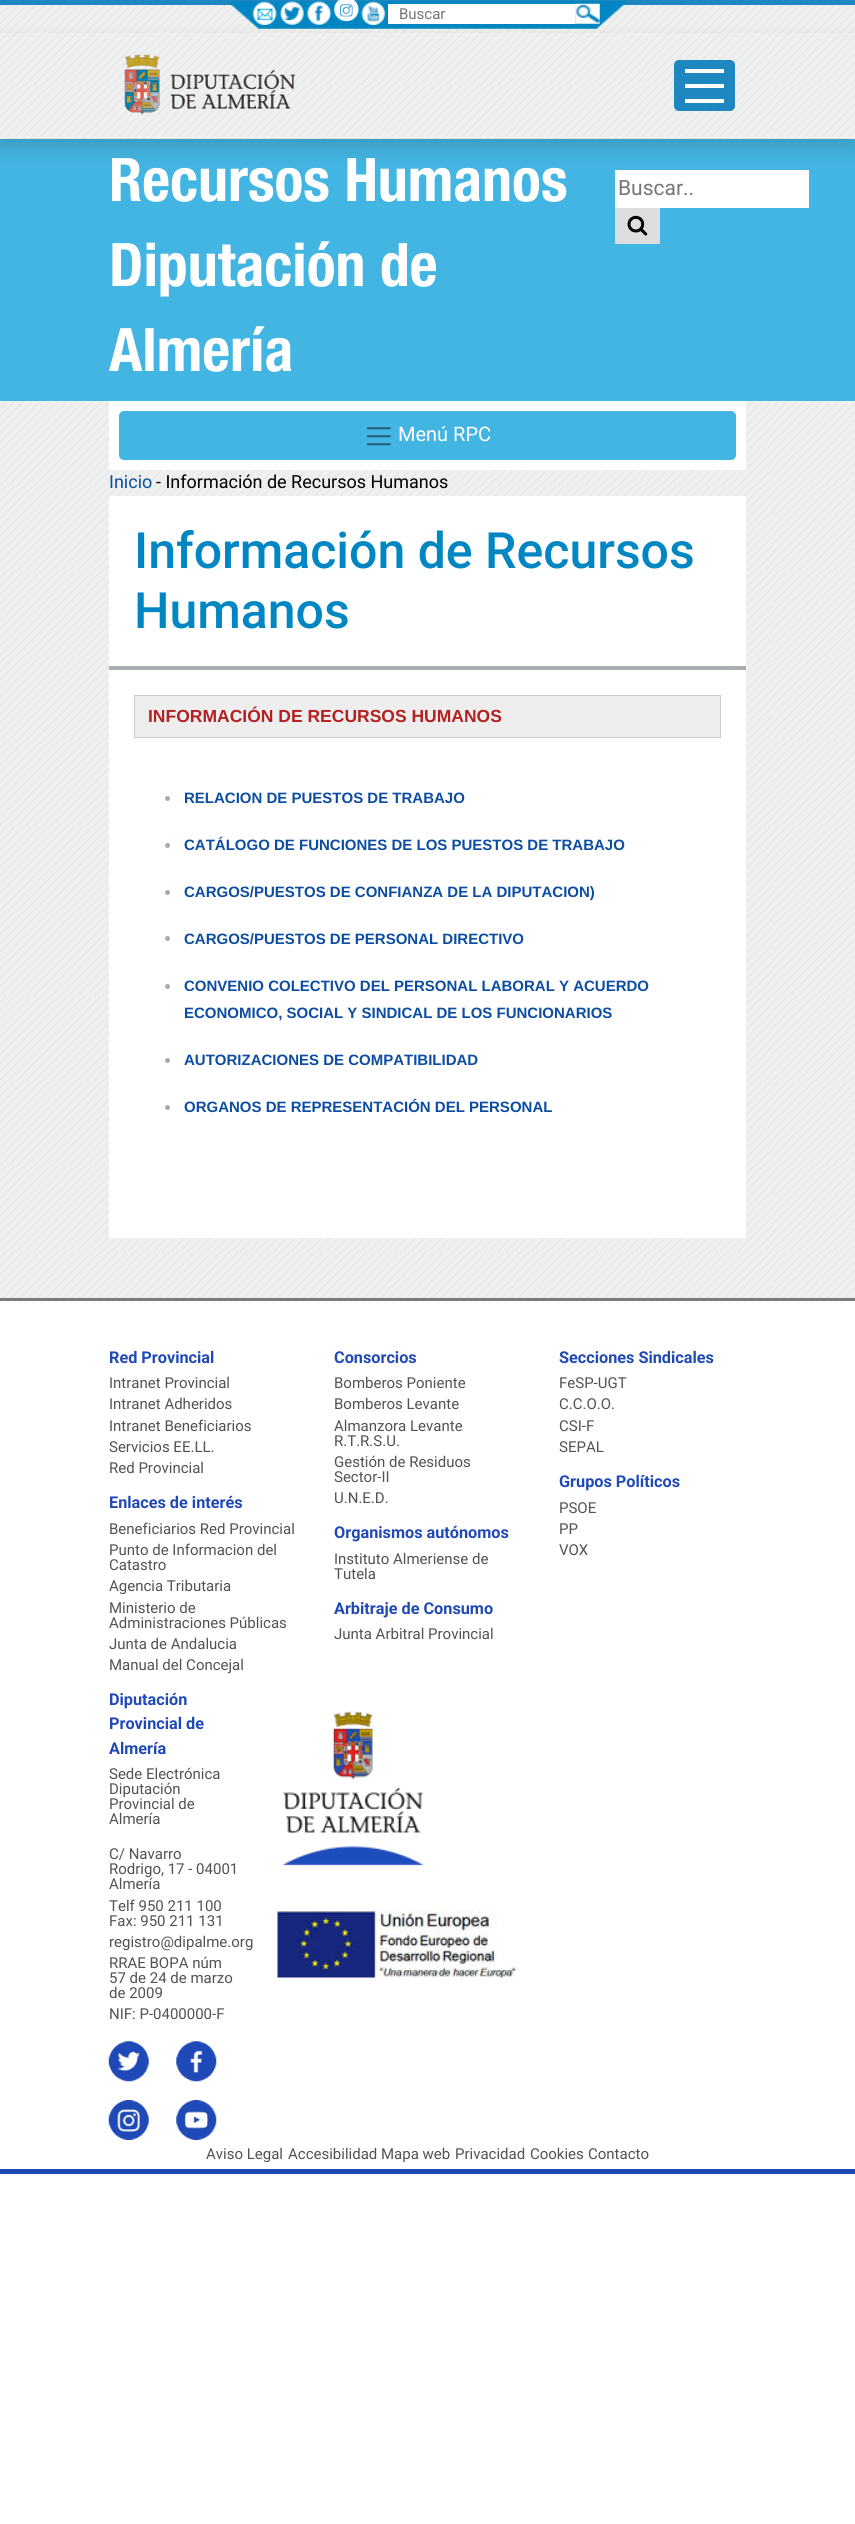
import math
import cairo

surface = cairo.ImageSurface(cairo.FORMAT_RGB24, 855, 2524)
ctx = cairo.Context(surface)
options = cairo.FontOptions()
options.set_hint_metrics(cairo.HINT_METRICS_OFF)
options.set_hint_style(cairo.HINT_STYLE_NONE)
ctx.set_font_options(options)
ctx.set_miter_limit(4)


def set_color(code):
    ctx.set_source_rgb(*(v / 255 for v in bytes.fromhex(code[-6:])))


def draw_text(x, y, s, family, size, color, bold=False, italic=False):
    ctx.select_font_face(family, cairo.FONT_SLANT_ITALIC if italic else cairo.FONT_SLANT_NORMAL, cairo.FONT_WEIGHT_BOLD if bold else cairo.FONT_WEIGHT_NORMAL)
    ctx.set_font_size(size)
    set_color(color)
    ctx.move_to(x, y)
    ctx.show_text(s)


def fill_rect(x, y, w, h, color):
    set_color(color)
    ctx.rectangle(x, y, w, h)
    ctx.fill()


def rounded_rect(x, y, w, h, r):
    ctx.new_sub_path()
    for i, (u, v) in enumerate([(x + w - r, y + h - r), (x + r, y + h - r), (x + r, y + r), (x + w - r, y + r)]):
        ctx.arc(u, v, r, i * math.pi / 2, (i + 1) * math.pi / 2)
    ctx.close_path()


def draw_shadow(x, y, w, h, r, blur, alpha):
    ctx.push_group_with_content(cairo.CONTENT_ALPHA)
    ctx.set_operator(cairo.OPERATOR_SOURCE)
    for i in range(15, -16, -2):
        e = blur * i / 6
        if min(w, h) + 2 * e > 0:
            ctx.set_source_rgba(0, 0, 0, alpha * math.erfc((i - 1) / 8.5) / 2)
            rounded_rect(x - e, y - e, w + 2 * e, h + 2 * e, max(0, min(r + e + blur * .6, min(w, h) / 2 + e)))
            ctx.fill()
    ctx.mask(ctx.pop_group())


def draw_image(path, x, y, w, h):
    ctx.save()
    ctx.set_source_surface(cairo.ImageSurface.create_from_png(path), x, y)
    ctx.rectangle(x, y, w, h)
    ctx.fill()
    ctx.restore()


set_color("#ffffff")
ctx.paint()
draw_image("assets/img1.png", 0, 5, 855, 133)
fill_rect(0, 0, 855, 5, "#1e87c0")
draw_image("assets/img2.png", 230, 1, 397, 28)
draw_image("assets/img3.png", 252, 1, 25, 24)
draw_image("assets/img4.png", 280, 1, 24, 24)
draw_image("assets/img5.png", 307, 1, 25, 24)
draw_image("assets/img6.png", 333, 0, 26, 22)
draw_image("assets/img7.png", 361, 1, 25, 24)
fill_rect(0, 139, 855, 262, "#43b5e2")
fill_rect(615, 170, 194, 38, "#ffffff")
ctx.save()
ctx.set_fill_rule(cairo.FILL_RULE_EVEN_ODD)
ctx.new_path()
ctx.move_to(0, 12)
ctx.line_to(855, 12)
ctx.line_to(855, 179)
ctx.line_to(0, 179)
ctx.close_path()
ctx.move_to(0, 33)
ctx.line_to(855, 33)
ctx.line_to(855, 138)
ctx.line_to(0, 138)
ctx.close_path()
ctx.clip()
set_color("#000000")
draw_shadow(0, 43, 855, 105, 0, 10, 0.15)
ctx.restore()
fill_rect(388, 4, 187, 20, "#ffffff")
draw_text(399, 19, "Buscar", "Roboto", 15, "#757575")
draw_image("assets/img8.png", 574, 3, 26, 21)
draw_image("assets/img9.png", 124, 54, 172, 61)
set_color("#1e87c0")
rounded_rect(674, 60, 61, 51, 5)
ctx.fill()
fill_rect(685, 84, 39, 4, "#ffffff")
fill_rect(685, 69, 39, 4, "#ffffff")
fill_rect(685, 99, 39, 4, "#ffffff")
draw_text(109, 201, "Recursos Humanos", "Helvetica Neue", 60, "#ffffff", bold=True)
draw_text(109, 286, "Diputación de", "Helvetica Neue", 60, "#ffffff", bold=True)
draw_text(109, 371, "Almería", "Helvetica Neue", 60, "#ffffff", bold=True)
draw_text(618, 195, "Buscar..", "Roboto", 21, "#757575")
fill_rect(615, 208, 45, 36, "#dddddd")
draw_image("assets/img10.png", 627, 215, 21, 21)
draw_image("assets/img11.png", 0, 401, 855, 897)
fill_rect(0, 1298, 855, 3, "#7a7a7a")
fill_rect(109, 401, 637, 69, "#ffffff")
set_color("#43b5e2")
rounded_rect(119, 411, 617, 49, 5)
ctx.fill()
draw_image("assets/img12.png", 366, 427, 25, 19)
draw_text(398, 441, "Menú RPC", "Roboto", 20, "#ffffff")
draw_text(109, 488, "Inicio", "Roboto", 18, "#0c4da2")
draw_text(156, 488, "- Información de Recursos Humanos", "Roboto", 18, "#000000")
fill_rect(109, 496, 637, 170, "#ffffff")
fill_rect(109, 666, 637, 4, "#abaeb0")
draw_text(134, 568, "Información de Recursos", "Roboto Medium", 50, "#0086c2")
draw_text(134, 628, "Humanos", "Roboto Medium", 50, "#0086c2")
fill_rect(109, 670, 637, 568, "#ffffff")
set_color("#eeeeee")
ctx.rectangle(134.5, 695.5, 586, 42)
ctx.fill_preserve()
set_color("#cccccc")
ctx.set_line_width(1)
ctx.stroke()
draw_text(148, 722, "INFORMACIÓN DE RECURSOS HUMANOS", "Liberation Sans", 17.5, "#b22222", bold=True)
set_color("#aaaaaa")
ctx.new_path()
ctx.arc(167.5, 798.5, 2.5, 0, 2 * math.pi)
ctx.fill()
draw_text(184, 803, "RELACION DE PUESTOS DE TRABAJO", "Liberation Sans", 15, "#0c4da2", bold=True)
set_color("#aaaaaa")
ctx.new_path()
ctx.arc(167.5, 845.5, 2.5, 0, 2 * math.pi)
ctx.fill()
draw_text(184, 850, "CATÁLOGO DE FUNCIONES DE LOS PUESTOS DE TRABAJO", "Liberation Sans", 15, "#0c4da2", bold=True)
set_color("#aaaaaa")
ctx.new_path()
ctx.arc(167.5, 892.5, 2.5, 0, 2 * math.pi)
ctx.fill()
draw_text(184, 897, "CARGOS/PUESTOS DE CONFIANZA DE LA DIPUTACION)", "Liberation Sans", 15, "#0c4da2", bold=True)
set_color("#aaaaaa")
ctx.new_path()
ctx.arc(167.5, 938.5, 2.5, 0, 2 * math.pi)
ctx.fill()
draw_text(184, 944, "CARGOS/PUESTOS DE PERSONAL DIRECTIVO", "Liberation Sans", 15, "#0c4da2", bold=True)
set_color("#aaaaaa")
ctx.new_path()
ctx.arc(167.5, 986.5, 2.5, 0, 2 * math.pi)
ctx.fill()
draw_text(184, 991, "CONVENIO COLECTIVO DEL PERSONAL LABORAL Y ACUERDO", "Liberation Sans", 15, "#0c4da2", bold=True)
draw_text(184, 1018, "ECONOMICO, SOCIAL Y SINDICAL DE LOS FUNCIONARIOS", "Liberation Sans", 15, "#0c4da2", bold=True)
set_color("#aaaaaa")
ctx.new_path()
ctx.arc(167.5, 1060.5, 2.5, 0, 2 * math.pi)
ctx.fill()
draw_text(184, 1065, "AUTORIZACIONES DE COMPATIBILIDAD", "Liberation Sans", 15, "#0c4da2", bold=True)
set_color("#aaaaaa")
ctx.new_path()
ctx.arc(167.5, 1107.5, 2.5, 0, 2 * math.pi)
ctx.fill()
draw_text(184, 1112, "ORGANOS DE REPRESENTACIÓN DEL PERSONAL", "Liberation Sans", 15, "#0c4da2", bold=True)
fill_rect(0, 2169, 855, 5, "#1f49b6")
draw_text(109, 1363, "Red Provincial", "Roboto", 16.25, "#1f49b6", bold=True)
draw_text(109, 1388, "Intranet Provincial", "Roboto", 15, "#525252")
draw_text(109, 1409, "Intranet Adheridos", "Roboto", 15, "#525252")
draw_text(109, 1431, "Intranet Beneficiarios", "Roboto", 15, "#525252")
draw_text(109, 1452, "Servicios EE.LL.", "Roboto", 15, "#525252")
draw_text(109, 1473, "Red Provincial", "Roboto", 15, "#525252")
draw_text(109, 1508, "Enlaces de interés", "Roboto", 16.25, "#1f49b6", bold=True)
draw_text(109, 1534, "Beneficiarios Red Provincial", "Roboto", 15, "#525252")
draw_text(109, 1555, "Punto de Informacion del", "Roboto", 15, "#525252")
draw_text(109, 1570, "Catastro", "Roboto", 15, "#525252")
draw_text(109, 1591, "Agencia Tributaria", "Roboto", 15, "#525252")
draw_text(109, 1613, "Ministerio de", "Roboto", 15, "#525252")
draw_text(109, 1628, "Administraciones Públicas", "Roboto", 15, "#525252")
draw_text(109, 1649, "Junta de Andalucia", "Roboto", 15, "#525252")
draw_text(109, 1670, "Manual del Concejal", "Roboto", 15, "#525252")
draw_text(334, 1363, "Consorcios", "Roboto", 16.25, "#1f49b6", bold=True)
draw_text(334, 1388, "Bomberos Poniente", "Roboto", 15, "#525252")
draw_text(334, 1409, "Bomberos Levante", "Roboto", 15, "#525252")
draw_text(334, 1431, "Almanzora Levante", "Roboto", 15, "#525252")
draw_text(334, 1446, "R.T.R.S.U.", "Roboto", 15, "#525252")
draw_text(334, 1467, "Gestión de Residuos", "Roboto", 15, "#525252")
draw_text(334, 1482, "Sector-II", "Roboto", 15, "#525252")
draw_text(334, 1503, "U.N.E.D.", "Roboto", 15, "#525252")
draw_text(334, 1538, "Organismos autónomos", "Roboto", 16.25, "#1f49b6", bold=True)
draw_text(334, 1564, "Instituto Almeriense de", "Roboto", 15, "#525252")
draw_text(334, 1579, "Tutela", "Roboto", 15, "#525252")
draw_text(334, 1614, "Arbitraje de Consumo", "Roboto", 16.25, "#1f49b6", bold=True)
draw_text(334, 1639, "Junta Arbitral Provincial", "Roboto", 15, "#525252")
draw_text(559, 1363, "Secciones Sindicales", "Roboto", 16.25, "#1f49b6", bold=True)
draw_text(559, 1388, "FeSP-UGT", "Roboto", 15, "#525252")
draw_text(559, 1409, "C.C.O.O.", "Roboto", 15, "#525252")
draw_text(559, 1431, "CSI-F", "Roboto", 15, "#525252")
draw_text(559, 1452, "SEPAL", "Roboto", 15, "#525252")
draw_text(559, 1487, "Grupos Políticos", "Roboto", 16.25, "#1f49b6", bold=True)
draw_text(559, 1513, "PSOE", "Roboto", 15, "#525252")
draw_text(559, 1534, "PP", "Roboto", 15, "#525252")
draw_text(559, 1555, "VOX", "Roboto", 15, "#525252")
draw_text(109, 1705, "Diputación", "Roboto", 16.25, "#1f49b6", bold=True)
draw_text(109, 1729, "Provincial de", "Roboto", 16.25, "#1f49b6", bold=True)
draw_text(109, 1754, "Almería", "Roboto", 16.25, "#1f49b6", bold=True)
draw_text(109, 1779, "Sede Electrónica", "Roboto", 15, "#525252")
draw_text(109, 1794, "Diputación", "Roboto", 15, "#525252")
draw_text(109, 1809, "Provincial de", "Roboto", 15, "#525252")
draw_text(109, 1824, "Almería", "Roboto", 15, "#525252")
draw_text(109, 1859, "C/ Navarro", "Roboto", 15, "#525252")
draw_text(109, 1874, "Rodrigo, 17 - 04001", "Roboto", 15, "#525252")
draw_text(109, 1889, "Almería", "Roboto", 15, "#525252")
draw_text(109, 1911, "Telf 950 211 100", "Roboto", 15, "#525252")
draw_text(109, 1926, "Fax: 950 211 131", "Roboto", 15, "#525252")
draw_text(109, 1947, "registro@dipalme.org", "Roboto", 15, "#525252")
draw_text(109, 1968, "RRAE BOPA núm", "Roboto", 15, "#525252")
draw_text(109, 1983, "57 de 24 de marzo", "Roboto", 15, "#525252")
draw_text(109, 1998, "de 2009", "Roboto", 15, "#525252")
draw_text(109, 2019, "NIF: P-0400000-F", "Roboto", 15, "#525252")
draw_image("assets/img13.png", 108, 2041, 41, 41)
draw_image("assets/img14.png", 176, 2041, 41, 41)
draw_image("assets/img15.png", 108, 2100, 41, 40)
draw_image("assets/img16.png", 176, 2100, 41, 40)
draw_image("assets/img17.png", 282, 1711, 142, 155)
draw_image("assets/img18.png", 277, 1910, 240, 68)
draw_text(206, 2159, "Aviso Legal", "Roboto", 15, "#525252")
draw_text(288, 2159, "Accesibilidad", "Roboto", 15, "#525252")
draw_text(381, 2159, "Mapa web", "Roboto", 15, "#525252")
draw_text(455, 2159, "Privacidad", "Roboto", 15, "#525252")
draw_text(530, 2159, "Cookies", "Roboto", 15, "#525252")
draw_text(588, 2159, "Contacto", "Roboto", 15, "#525252")
surface.write_to_png("output.png")
